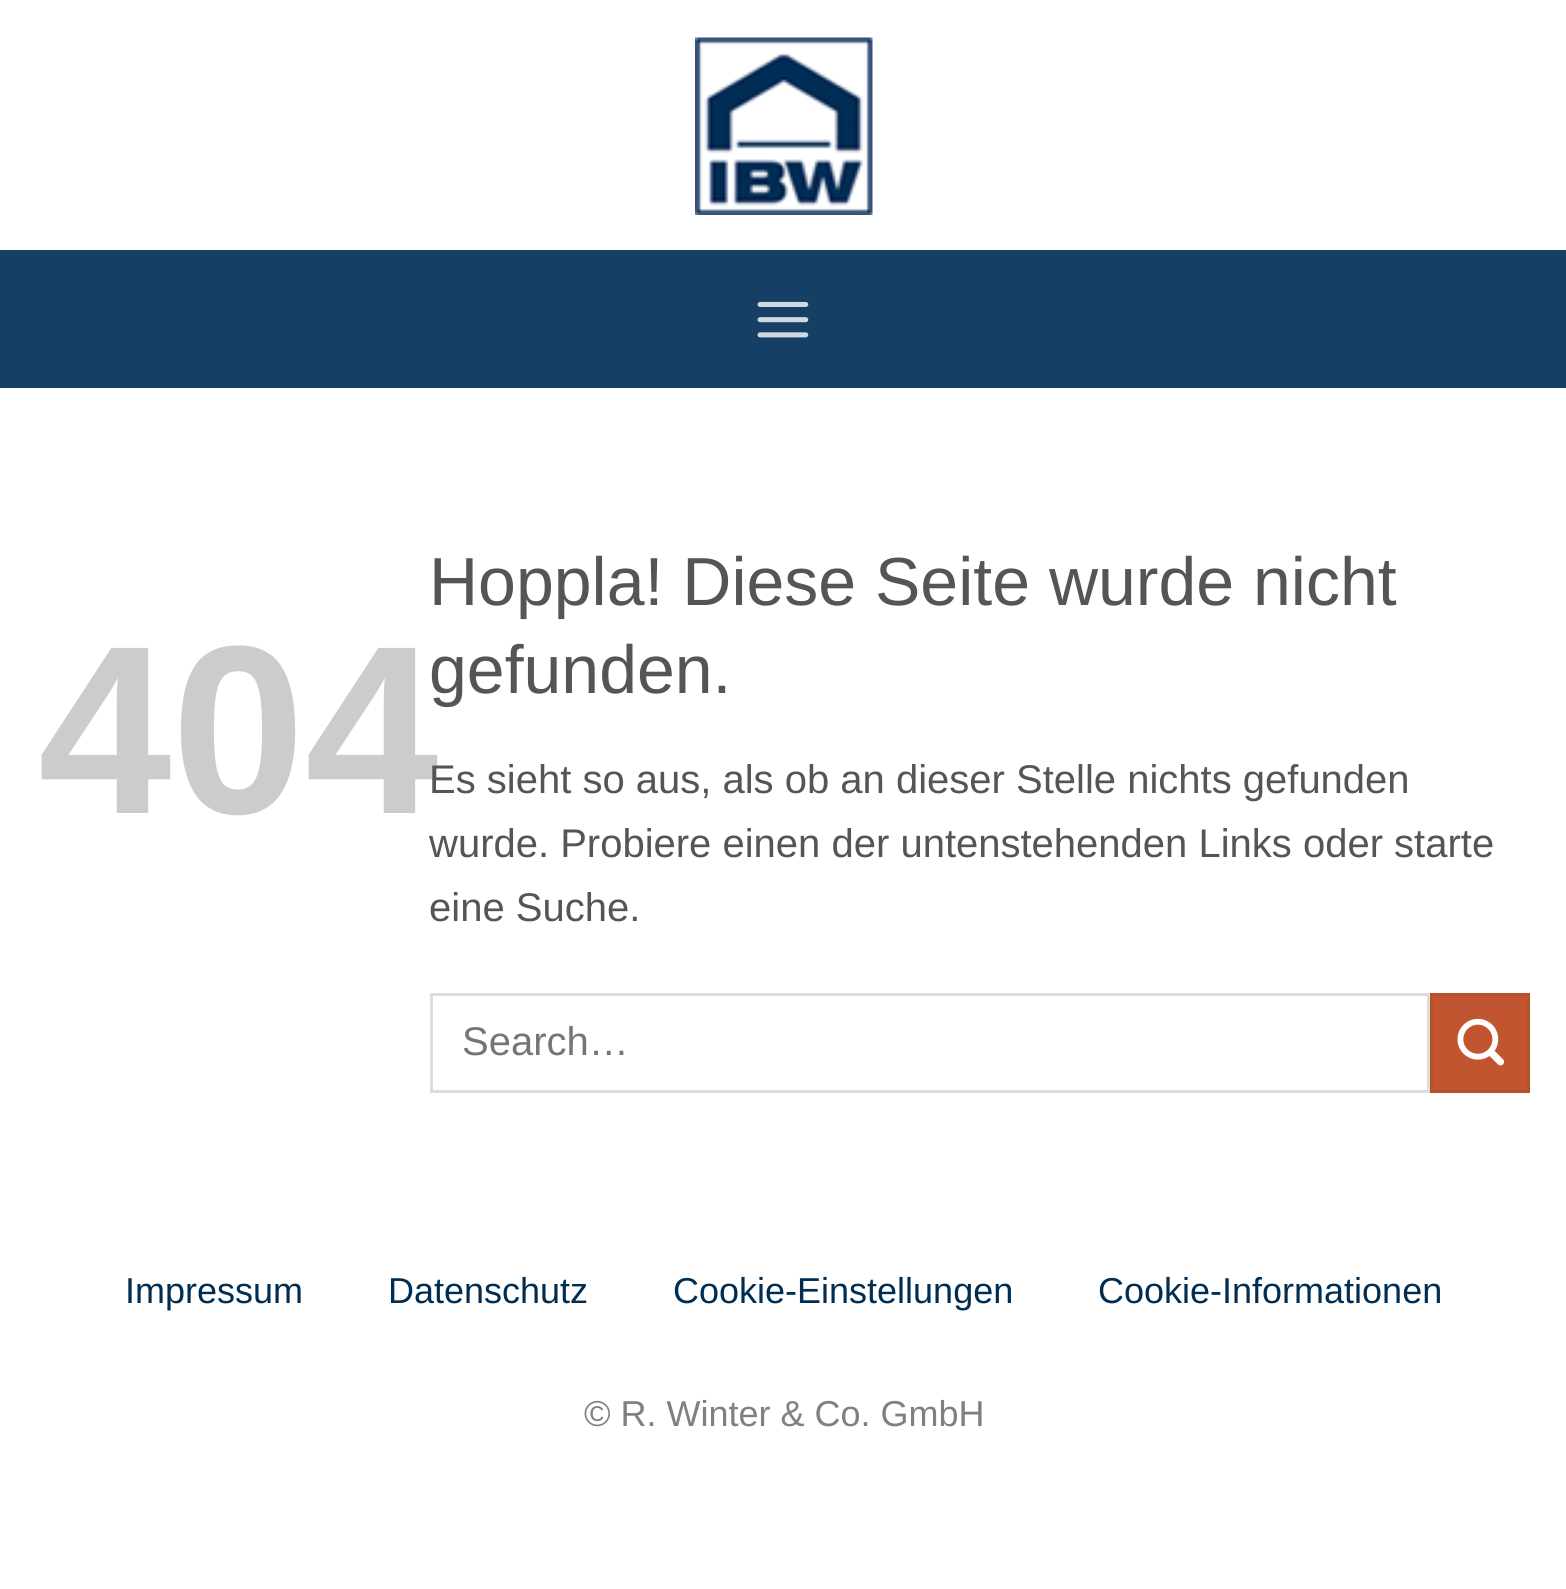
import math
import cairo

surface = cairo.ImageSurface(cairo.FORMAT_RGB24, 1566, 1589)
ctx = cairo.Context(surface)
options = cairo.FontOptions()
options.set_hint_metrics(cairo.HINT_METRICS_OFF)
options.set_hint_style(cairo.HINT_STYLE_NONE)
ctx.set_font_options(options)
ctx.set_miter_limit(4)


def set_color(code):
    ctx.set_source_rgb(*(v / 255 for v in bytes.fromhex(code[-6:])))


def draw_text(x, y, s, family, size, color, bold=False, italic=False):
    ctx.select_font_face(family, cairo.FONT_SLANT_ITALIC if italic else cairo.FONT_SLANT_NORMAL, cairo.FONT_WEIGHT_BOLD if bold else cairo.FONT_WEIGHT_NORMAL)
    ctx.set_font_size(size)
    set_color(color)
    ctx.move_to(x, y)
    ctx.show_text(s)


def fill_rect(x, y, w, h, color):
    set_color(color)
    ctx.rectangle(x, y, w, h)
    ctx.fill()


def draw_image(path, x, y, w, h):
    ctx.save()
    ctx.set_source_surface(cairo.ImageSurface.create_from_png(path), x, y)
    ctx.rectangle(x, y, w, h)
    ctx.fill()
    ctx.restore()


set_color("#ffffff")
ctx.paint()
draw_image("assets/img1.png", 695, 37, 178, 178)
fill_rect(0, 250, 1566, 138, "#153f65")
draw_image("assets/img2.png", 757, 301, 52, 37)
draw_text(38, 813, "404", "Liberation Sans", 240, "#cccccc", bold=True)
draw_text(429, 605, "Hoppla! Diese Seite wurde nicht", "Liberation Sans", 68, "#555555")
draw_text(429, 693, "gefunden.", "Liberation Sans", 68, "#555555")
draw_text(429, 793, "Es sieht so aus, als ob an dieser Stelle nichts gefunden", "Liberation Sans", 40, "#555555")
draw_text(429, 857, "wurde. Probiere einen der untenstehenden Links oder starte", "Liberation Sans", 40, "#555555")
draw_text(429, 921, "eine Suche.", "Liberation Sans", 40, "#555555")
ctx.rectangle(431.5, 994.5, 997, 97)
set_color("#dddddd")
ctx.set_line_width(3)
ctx.stroke()
draw_text(462, 1055, "Search…", "Liberation Sans", 40, "#757575")
set_color("#c05530")
ctx.rectangle(1431.5, 994.5, 97, 97)
ctx.fill_preserve()
set_color("#b6512e")
ctx.stroke()
draw_image("assets/img3.png", 1457, 1018, 47, 48)
draw_text(125, 1303, "Impressum", "Liberation Sans", 36, "#002e53")
draw_text(388, 1303, "Datenschutz", "Liberation Sans", 36, "#002e53")
draw_text(673, 1303, "Cookie-Einstellungen", "Liberation Sans", 36, "#002e53")
draw_text(1098, 1303, "Cookie-Informationen", "Liberation Sans", 36, "#002e53")
draw_text(584, 1426, "© R. Winter & Co. GmbH", "Liberation Sans", 36, "#808080")
surface.write_to_png("output.png")
